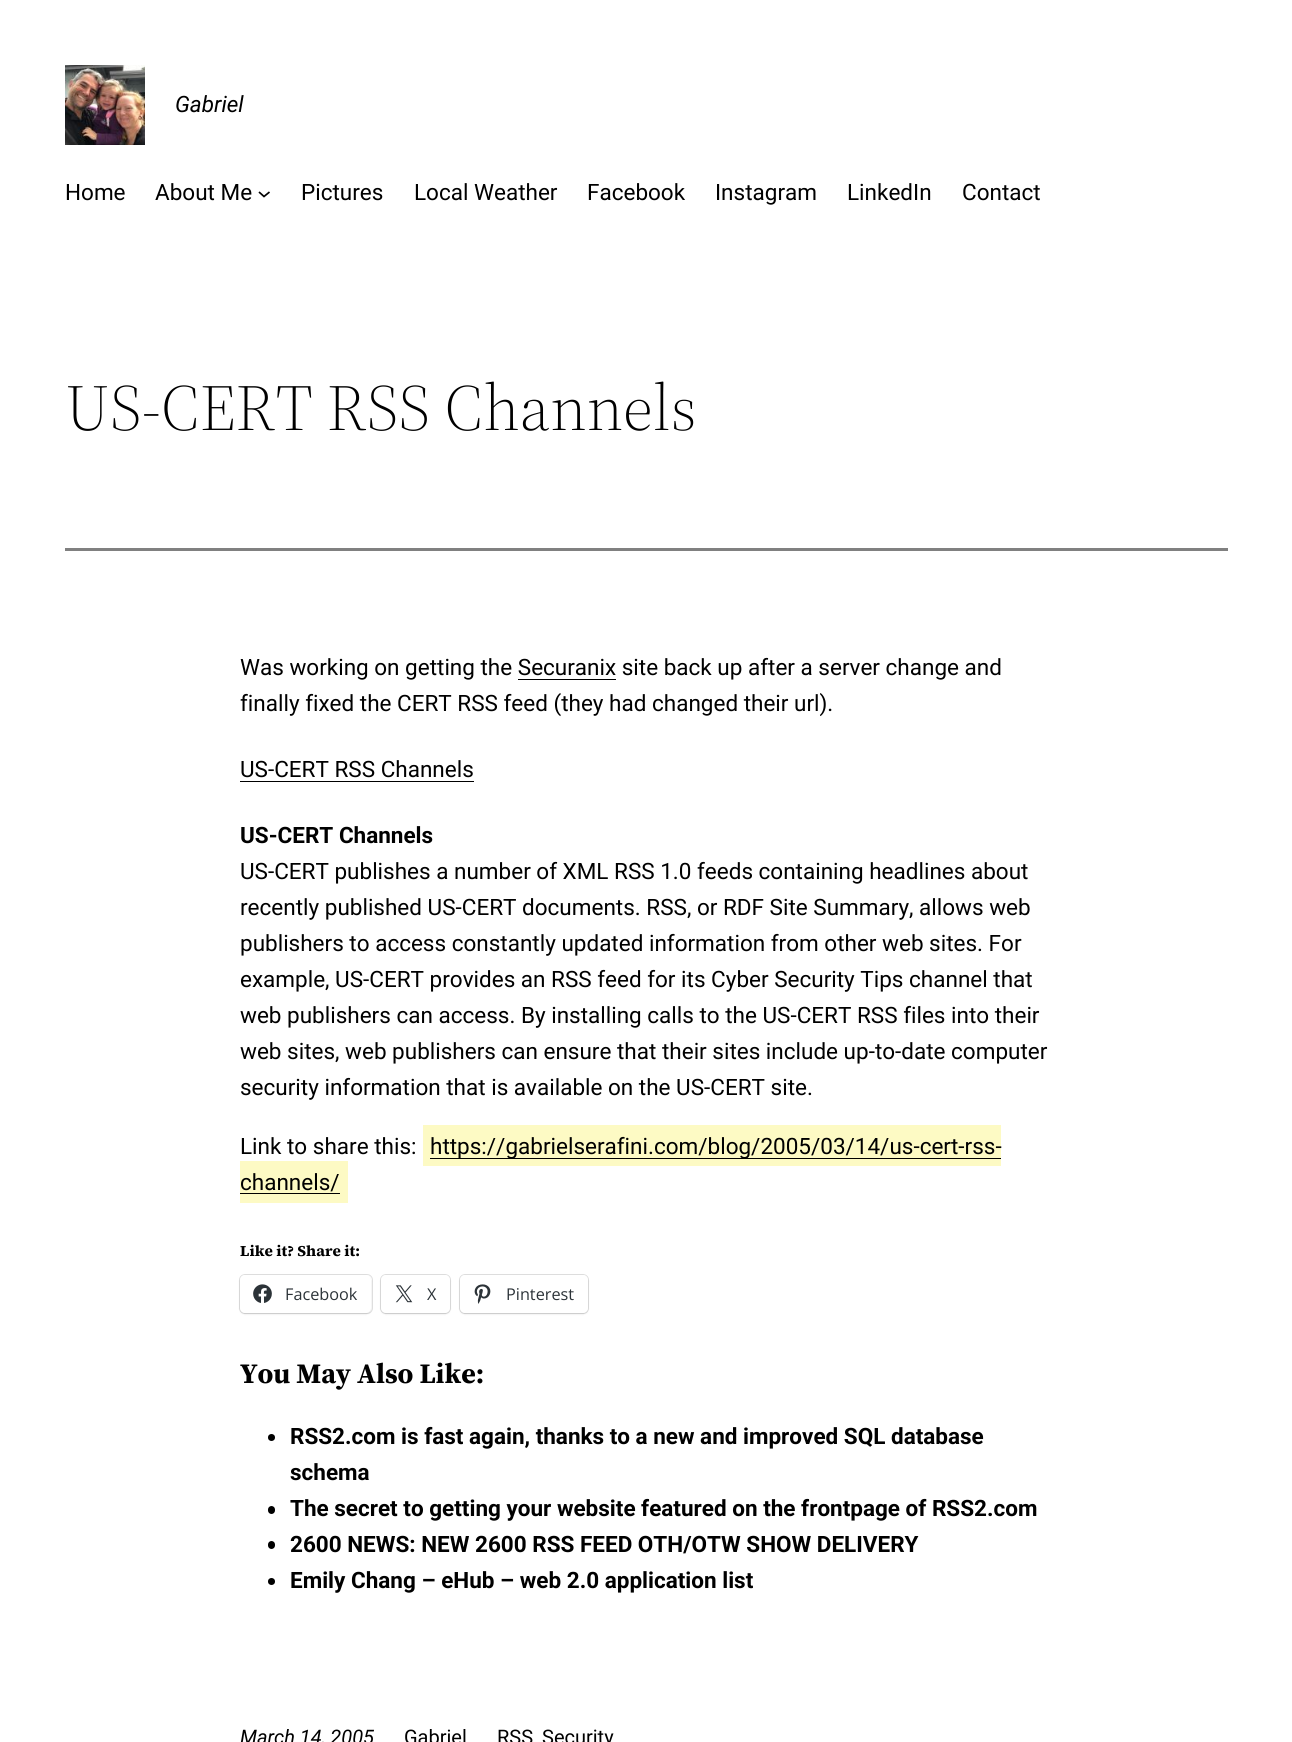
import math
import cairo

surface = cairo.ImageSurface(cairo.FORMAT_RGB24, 1292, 1742)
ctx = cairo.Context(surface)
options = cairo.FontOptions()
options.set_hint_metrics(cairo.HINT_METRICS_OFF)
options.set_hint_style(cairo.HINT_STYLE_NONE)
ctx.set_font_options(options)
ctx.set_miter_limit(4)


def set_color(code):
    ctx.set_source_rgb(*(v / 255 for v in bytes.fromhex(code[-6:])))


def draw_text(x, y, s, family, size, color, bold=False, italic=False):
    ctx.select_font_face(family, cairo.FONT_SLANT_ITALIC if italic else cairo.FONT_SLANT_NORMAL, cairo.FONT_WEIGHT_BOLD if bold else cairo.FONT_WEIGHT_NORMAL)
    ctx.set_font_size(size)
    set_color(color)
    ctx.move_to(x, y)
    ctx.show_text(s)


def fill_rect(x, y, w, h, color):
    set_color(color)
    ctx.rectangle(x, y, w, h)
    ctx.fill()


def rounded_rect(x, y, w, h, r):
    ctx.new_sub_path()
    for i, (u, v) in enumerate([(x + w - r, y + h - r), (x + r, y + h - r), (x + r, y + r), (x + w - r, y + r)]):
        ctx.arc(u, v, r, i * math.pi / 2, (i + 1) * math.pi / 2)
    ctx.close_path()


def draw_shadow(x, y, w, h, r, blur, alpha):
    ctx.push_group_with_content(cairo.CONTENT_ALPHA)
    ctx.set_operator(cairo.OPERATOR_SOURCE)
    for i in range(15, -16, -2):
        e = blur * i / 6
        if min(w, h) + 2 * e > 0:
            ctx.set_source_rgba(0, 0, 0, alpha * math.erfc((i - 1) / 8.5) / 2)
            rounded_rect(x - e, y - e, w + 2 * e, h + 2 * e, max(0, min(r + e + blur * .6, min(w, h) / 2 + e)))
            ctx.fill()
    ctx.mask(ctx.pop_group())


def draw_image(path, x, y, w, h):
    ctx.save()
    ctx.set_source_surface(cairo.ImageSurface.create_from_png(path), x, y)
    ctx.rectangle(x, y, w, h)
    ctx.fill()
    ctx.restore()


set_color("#ffffff")
ctx.paint()
draw_image("assets/img1.png", 65, 65, 80, 80)
draw_text(175, 112, "Gabriel", "Roboto", 22.5, "#000000", italic=True)
draw_text(65, 200, "Home", "Roboto", 22.5, "#000000")
draw_text(155, 200, "About Me", "Roboto", 22.5, "#000000")
ctx.new_path()
ctx.move_to(259, 192)
ctx.line_to(264, 196.5)
ctx.line_to(269.5, 192)
ctx.set_line_width(1.7)
ctx.stroke()
draw_text(301, 200, "Pictures", "Roboto", 22.5, "#000000")
draw_text(414, 200, "Local Weather", "Roboto", 22.5, "#000000")
draw_text(587, 200, "Facebook", "Roboto", 22.5, "#000000")
draw_text(715, 200, "Instagram", "Roboto", 22.5, "#000000")
draw_text(847, 200, "LinkedIn", "Roboto", 22.5, "#000000")
draw_text(962, 200, "Contact", "Roboto", 22.5, "#000000")
draw_text(65, 430, "US-CERT RSS Channels", "Source Serif 4 Light", 65, "#000000")
fill_rect(65, 548, 1163, 3, "#808080")
draw_text(240, 675, "Was working on getting the Securanix site back up after a server change and", "Roboto", 22.5, "#000000")
fill_rect(518, 679, 98, 1, "#000000")
draw_text(240, 711, "finally fixed the CERT RSS feed (they had changed their url).", "Roboto", 22.5, "#000000")
draw_text(240, 777, "US-CERT RSS Channels", "Roboto", 22.5, "#000000")
fill_rect(240, 781, 234, 1, "#000000")
draw_text(240, 843, "US-CERT Channels", "Roboto", 22.5, "#000000", bold=True)
draw_text(240, 879, "US-CERT publishes a number of XML RSS 1.0 feeds containing headlines about", "Roboto", 22.5, "#000000")
draw_text(240, 915, "recently published US-CERT documents. RSS, or RDF Site Summary, allows web", "Roboto", 22.5, "#000000")
draw_text(240, 951, "publishers to access constantly updated information from other web sites. For", "Roboto", 22.5, "#000000")
draw_text(240, 987, "example, US-CERT provides an RSS feed for its Cyber Security Tips channel that", "Roboto", 22.5, "#000000")
draw_text(240, 1023, "web publishers can access. By installing calls to the US-CERT RSS files into their", "Roboto", 22.5, "#000000")
draw_text(240, 1059, "web sites, web publishers can ensure that their sites include up-to-date computer", "Roboto", 22.5, "#000000")
draw_text(240, 1095, "security information that is available on the US-CERT site.", "Roboto", 22.5, "#000000")
draw_text(240, 1154, "Link to share this:", "Roboto", 22.5, "#000000")
fill_rect(423, 1125, 578, 41, "#fdfac4")
fill_rect(430, 1158, 571, 1, "#000000")
draw_text(430, 1154, "https://gabrielserafini.com/blog/2005/03/14/us-cert-rss-", "Roboto", 22.5, "#000000")
fill_rect(240, 1161, 108, 42, "#fdfac4")
draw_text(240, 1190, "channels/", "Roboto", 22.5, "#000000")
fill_rect(240, 1193, 100, 1, "#000000")
draw_text(240, 1256, "Like it? Share it:", "Source Serif 4", 15, "#000000", bold=True)
rounded_rect(239.5, 1274.5, 133, 39, 5.5)
set_color("#e0e0e0")
ctx.set_line_width(1)
ctx.stroke()
set_color("#000000")
draw_shadow(240, 1276, 131, 38, 5, 1, 0.12)
set_color("#ffffff")
rounded_rect(240, 1275, 131, 38, 5)
ctx.fill()
draw_image("assets/img2.png", 253, 1284, 19, 19)
draw_text(285, 1300, "Facebook", "Open Sans", 16.25, "#2c3338")
rounded_rect(380.5, 1274.5, 70, 39, 5.5)
set_color("#e0e0e0")
ctx.stroke()
set_color("#000000")
draw_shadow(381, 1276, 69, 38, 5, 1, 0.12)
set_color("#ffffff")
rounded_rect(381, 1275, 69, 38, 5)
ctx.fill()
draw_image("assets/img3.png", 395, 1285, 18, 18)
draw_text(427, 1300, "X", "Open Sans", 16.25, "#2c3338")
rounded_rect(459.5, 1274.5, 129, 39, 5.5)
set_color("#e0e0e0")
ctx.stroke()
set_color("#000000")
draw_shadow(460, 1276, 128, 38, 5, 1, 0.12)
set_color("#ffffff")
rounded_rect(460, 1275, 128, 38, 5)
ctx.fill()
draw_image("assets/img4.png", 474, 1284, 17, 20)
draw_text(506, 1300, "Pinterest", "Open Sans", 16.25, "#2c3338")
draw_text(240, 1383, "You May Also Like:", "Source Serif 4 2", 28.1, "#000000", bold=True)
ctx.new_path()
ctx.arc(271.5, 1437.5, 3.5, 0, 2 * math.pi)
ctx.fill()
draw_text(290, 1444, "RSS2.com is fast again, thanks to a new and improved SQL database", "Roboto", 22.5, "#000000", bold=True)
draw_text(290, 1480, "schema", "Roboto", 22.5, "#000000", bold=True)
rounded_rect(268, 1506, 7, 8, 3.5)
ctx.fill()
draw_text(290, 1516, "The secret to getting your website featured on the frontpage of RSS2.com", "Roboto", 22.5, "#000000", bold=True)
rounded_rect(268, 1541, 7, 8, 3.5)
ctx.fill()
draw_text(290, 1552, "2600 NEWS: NEW 2600 RSS FEED OTH/OTW SHOW DELIVERY", "Roboto", 22.5, "#000000", bold=True)
ctx.new_path()
ctx.arc(271.5, 1581.5, 3.5, 0, 2 * math.pi)
ctx.fill()
draw_text(290, 1588, "Emily Chang – eHub – web 2.0 application list", "Roboto", 22.5, "#000000", bold=True)
draw_text(240, 1744, "March 14, 2005", "Roboto", 20, "#000000", italic=True)
draw_text(404, 1744, "Gabriel", "Roboto", 20, "#000000")
draw_text(497, 1744, "RSS", "Roboto", 20, "#000000")
draw_text(542, 1744, "Security", "Roboto", 20, "#000000")
surface.write_to_png("output.png")
